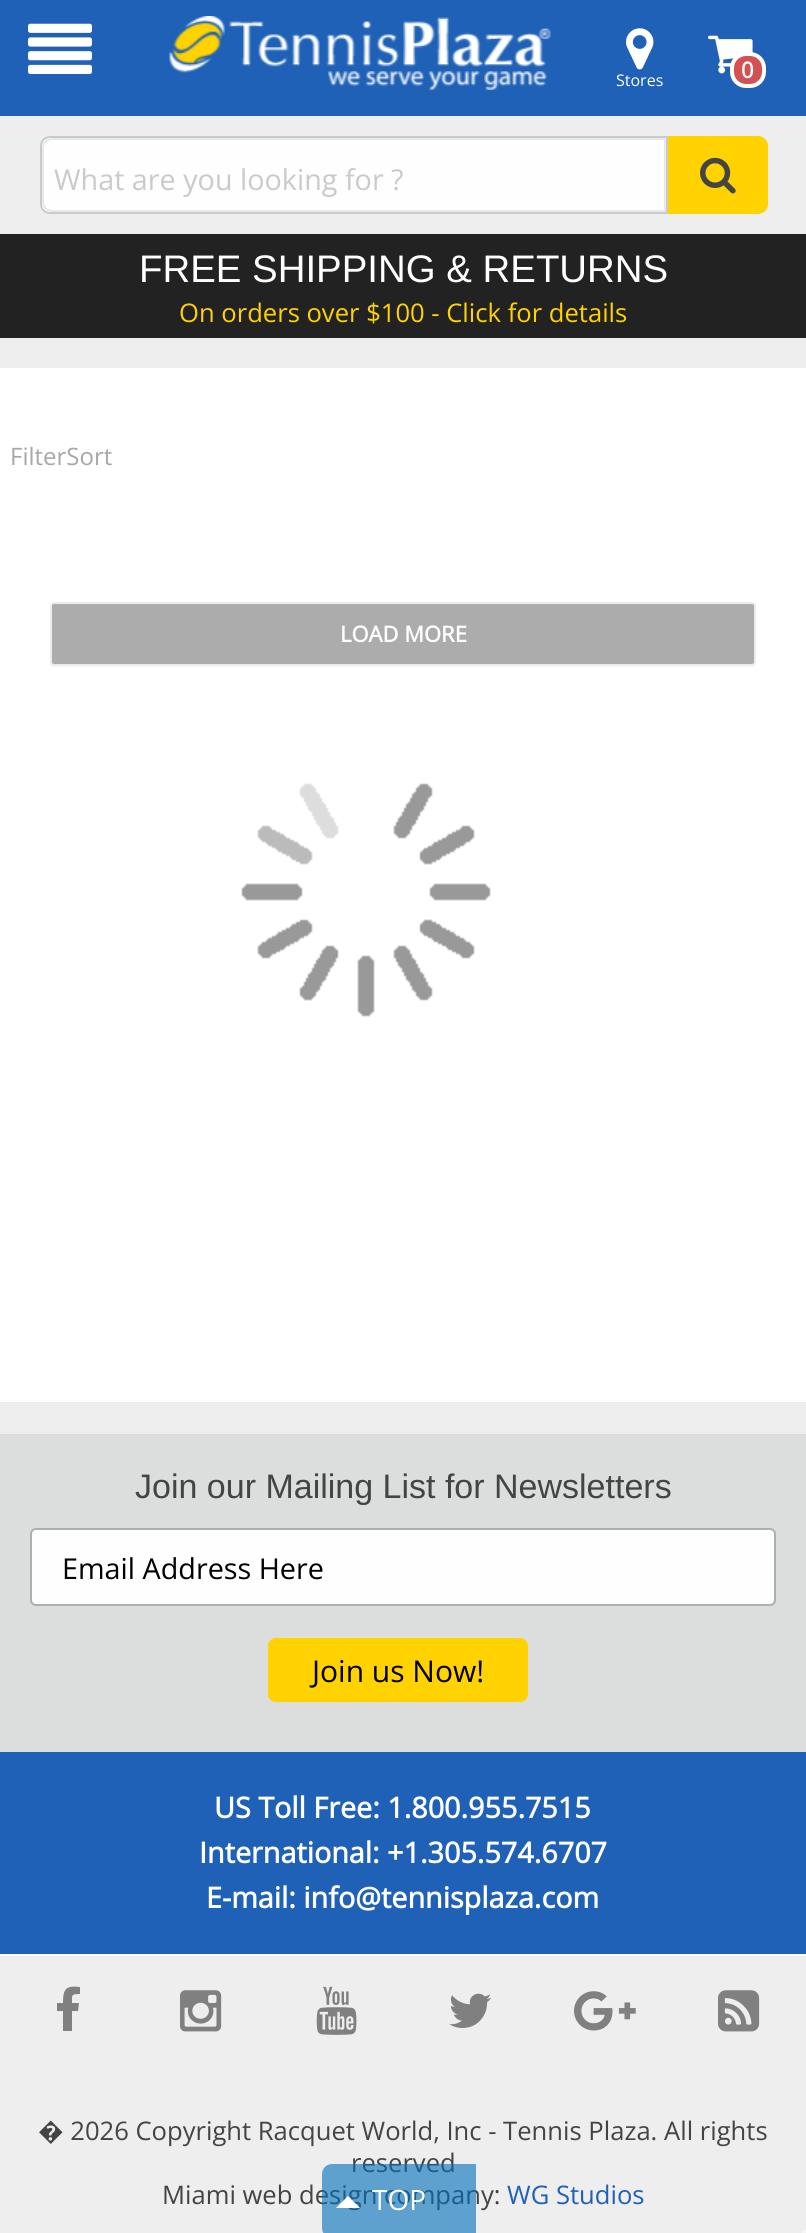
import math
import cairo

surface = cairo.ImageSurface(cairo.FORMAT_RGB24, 806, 2233)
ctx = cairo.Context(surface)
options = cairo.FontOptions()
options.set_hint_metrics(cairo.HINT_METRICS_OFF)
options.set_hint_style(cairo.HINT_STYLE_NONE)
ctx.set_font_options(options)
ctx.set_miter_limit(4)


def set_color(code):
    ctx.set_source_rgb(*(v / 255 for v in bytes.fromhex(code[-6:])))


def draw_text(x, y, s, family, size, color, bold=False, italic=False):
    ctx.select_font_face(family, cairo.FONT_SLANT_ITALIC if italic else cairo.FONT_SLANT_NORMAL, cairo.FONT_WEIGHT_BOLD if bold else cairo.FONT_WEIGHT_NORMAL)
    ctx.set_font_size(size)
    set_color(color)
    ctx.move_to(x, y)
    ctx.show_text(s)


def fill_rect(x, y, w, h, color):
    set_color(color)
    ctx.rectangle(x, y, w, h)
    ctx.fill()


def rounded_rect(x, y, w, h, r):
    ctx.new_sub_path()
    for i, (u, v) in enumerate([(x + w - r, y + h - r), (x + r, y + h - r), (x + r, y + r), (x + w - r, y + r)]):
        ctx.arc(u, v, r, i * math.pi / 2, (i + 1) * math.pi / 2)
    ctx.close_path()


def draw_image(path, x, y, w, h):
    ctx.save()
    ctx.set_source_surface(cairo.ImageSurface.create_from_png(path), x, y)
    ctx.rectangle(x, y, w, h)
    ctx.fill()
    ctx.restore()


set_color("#eeeeee")
ctx.paint()
fill_rect(0, 0, 806, 116, "#1f61b6")
draw_image("assets/img1.png", 28, 23, 64, 51)
draw_image("assets/img2.png", 169, 16, 382, 74)
draw_image("assets/img3.png", 708, 35, 45, 39)
set_color("#d35053")
rounded_rect(732, 54, 32, 32, 14)
ctx.fill_preserve()
set_color("#ffffff")
ctx.set_line_width(4)
ctx.stroke()
draw_text(741, 78, "0", "Open Sans", 22, "#ffffff", bold=True)
draw_image("assets/img4.png", 626, 28, 28, 42)
draw_text(616, 86, "Stores", "Open Sans", 16, "#ffffff")
set_color("#fefefe")
ctx.new_path()
ctx.move_to(50, 137)
ctx.line_to(667, 137)
ctx.line_to(667, 213)
ctx.line_to(50, 213)
ctx.curve_to(45, 213, 41, 209, 41, 204)
ctx.line_to(41, 146)
ctx.curve_to(41, 141, 45, 137, 50, 137)
ctx.close_path()
ctx.fill_preserve()
set_color("#cacaca")
ctx.set_line_width(2)
ctx.stroke()
set_color("#fefefe")
ctx.new_path()
ctx.move_to(52, 139)
ctx.line_to(665, 139)
ctx.line_to(665, 211)
ctx.line_to(52, 211)
ctx.curve_to(47, 211, 43, 207, 43, 202)
ctx.line_to(43, 148)
ctx.curve_to(43, 143, 47, 139, 52, 139)
ctx.close_path()
ctx.fill_preserve()
set_color("#e7e8ea")
ctx.stroke()
draw_text(54, 190, "What are you looking for ?", "Open Sans", 28.75, "#cacaca")
set_color("#ffd200")
ctx.new_path()
ctx.move_to(668, 136)
ctx.line_to(758, 136)
ctx.curve_to(763.5, 136, 768, 140.5, 768, 146)
ctx.line_to(768, 204)
ctx.curve_to(768, 209.5, 763.5, 214, 758, 214)
ctx.line_to(668, 214)
ctx.close_path()
ctx.fill()
draw_image("assets/img5.png", 700, 157, 36, 37)
fill_rect(0, 234, 806, 104, "#222222")
draw_text(139, 282, "FREE SHIPPING & RETURNS", "Liberation Sans", 38.4, "#ffffff")
draw_text(179, 322, "On orders over $100 - Click for details", "Open Sans", 25.6, "#ffd200")
fill_rect(0, 368, 806, 1034, "#ffffff")
draw_text(10, 465, "FilterSort", "Open Sans", 24, "#a7a7a7")
set_color("#fafafa")
ctx.new_path()
ctx.move_to(50, 662)
ctx.curve_to(50, 665, 50, 668, 54, 668)
ctx.line_to(752, 668)
ctx.curve_to(756, 668, 756, 665, 756, 662)
ctx.curve_to(756, 664, 754, 666, 752, 666)
ctx.line_to(54, 666)
ctx.curve_to(52, 666, 50, 664, 50, 662)
ctx.close_path()
ctx.fill()
set_color("#acacac")
rounded_rect(51, 603, 704, 62, 3)
ctx.fill_preserve()
set_color("#ebebeb")
ctx.stroke()
draw_text(340, 642, "LOAD MORE", "Open Sans", 22, "#ffffff", bold=True)
draw_text(351, 2172, "reserved", "Open Sans", 25.6, "#444444")
draw_text(162, 2204, "Miami web design company:", "Open Sans", 25.6, "#444444")
ctx.set_source_rgba(0, 0.435, 0.725, 0.6)
ctx.new_path()
ctx.move_to(332, 2164)
ctx.line_to(476, 2164)
ctx.line_to(476, 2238)
ctx.line_to(332, 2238)
ctx.curve_to(326.5, 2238, 322, 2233.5, 322, 2228)
ctx.line_to(322, 2174)
ctx.curve_to(322, 2168.5, 326.5, 2164, 332, 2164)
ctx.close_path()
ctx.fill()
set_color("#ffffff")
ctx.new_path()
ctx.move_to(360, 2208)
ctx.line_to(336, 2208)
ctx.line_to(348, 2196)
ctx.close_path()
ctx.fill()
draw_text(372, 2210, "TOP", "Open Sans", 28, "#ffffff")
draw_image("assets/img6.png", 241, 783, 250, 234)
fill_rect(0, 1434, 806, 318, "#dcdddd")
draw_text(135, 1498, "Join our Mailing List for Newsletters", "Liberation Sans", 34, "#444444")
set_color("#fefefe")
rounded_rect(31, 1529, 744, 76, 5)
ctx.fill_preserve()
set_color("#abb0b2")
ctx.stroke()
draw_text(62, 1579, "Email Address Here", "Open Sans", 28.75, "#000000")
set_color("#ffd200")
rounded_rect(268, 1638, 260, 64, 8)
ctx.fill()
draw_text(312, 1682, "Join us Now!", "Open Sans", 30, "#000000")
fill_rect(0, 1752, 806, 202, "#1f61b6")
fill_rect(0, 1954, 806, 2, "#ffffff")
draw_text(214, 1818, "US Toll Free: 1.800.955.7515", "Open Sans", 28.75, "#ffffff", bold=True)
draw_text(199, 1863, "International: +1.305.574.6707", "Open Sans", 28.75, "#ffffff", bold=True)
draw_text(206, 1908, "E-mail: info@tennisplaza.com", "Open Sans", 28.75, "#ffffff", bold=True)
set_color("#808080")
ctx.new_path()
ctx.move_to(80, 1987)
ctx.line_to(80, 1994)
ctx.curve_to(71, 1994, 72, 1995, 72, 2003)
ctx.line_to(79, 2003)
ctx.line_to(78, 2011)
ctx.line_to(72, 2011)
ctx.line_to(72, 2031)
ctx.line_to(63, 2031)
ctx.line_to(63, 2011)
ctx.line_to(57, 2011)
ctx.line_to(57, 2003)
ctx.line_to(63, 2003)
ctx.curve_to(63, 1990, 65, 1985, 80, 1987)
ctx.close_path()
ctx.fill()
draw_image("assets/img7.png", 180, 1990, 42, 42)
draw_image("assets/img8.png", 316, 1986, 41, 49)
draw_image("assets/img9.png", 449, 1993, 43, 35)
draw_image("assets/img10.png", 574, 1991, 62, 40)
draw_image("assets/img11.png", 718, 1990, 42, 42)
draw_text(38, 2140, "� 2026 Copyright Racquet World, Inc - Tennis Plaza. All rights", "Open Sans", 25.6, "#444444")
draw_text(507, 2204, "WG Studios", "Open Sans", 25.6, "#1f61b6")
fill_rect(802, 2230, 4, 3, "#f5f5f5")
surface.write_to_png("output.png")
